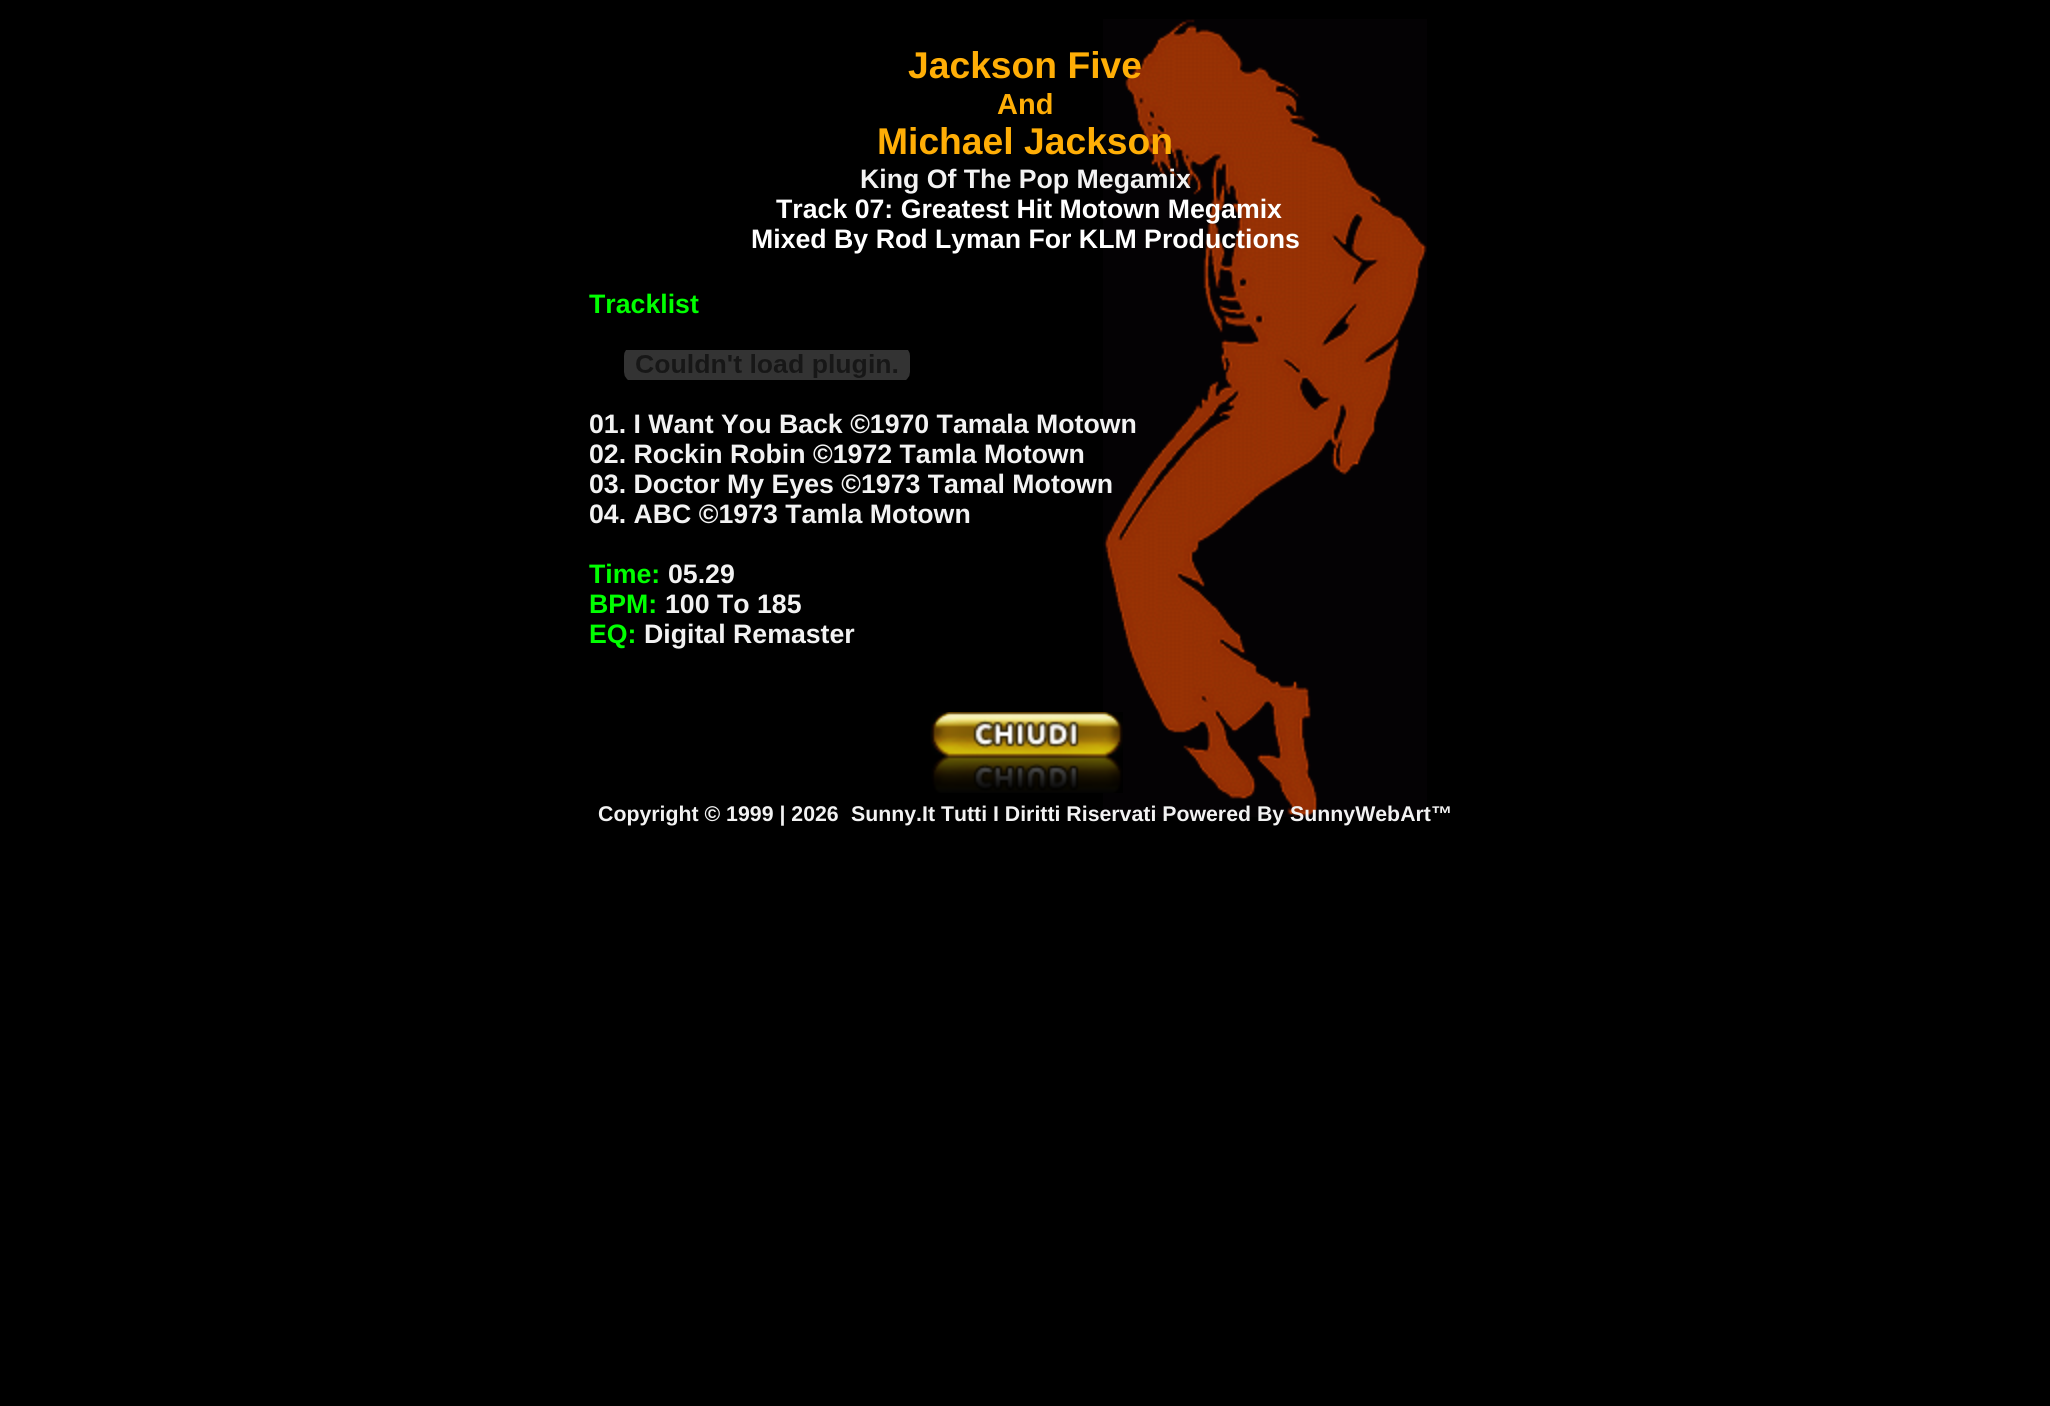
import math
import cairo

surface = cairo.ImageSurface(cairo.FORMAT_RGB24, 2050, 1406)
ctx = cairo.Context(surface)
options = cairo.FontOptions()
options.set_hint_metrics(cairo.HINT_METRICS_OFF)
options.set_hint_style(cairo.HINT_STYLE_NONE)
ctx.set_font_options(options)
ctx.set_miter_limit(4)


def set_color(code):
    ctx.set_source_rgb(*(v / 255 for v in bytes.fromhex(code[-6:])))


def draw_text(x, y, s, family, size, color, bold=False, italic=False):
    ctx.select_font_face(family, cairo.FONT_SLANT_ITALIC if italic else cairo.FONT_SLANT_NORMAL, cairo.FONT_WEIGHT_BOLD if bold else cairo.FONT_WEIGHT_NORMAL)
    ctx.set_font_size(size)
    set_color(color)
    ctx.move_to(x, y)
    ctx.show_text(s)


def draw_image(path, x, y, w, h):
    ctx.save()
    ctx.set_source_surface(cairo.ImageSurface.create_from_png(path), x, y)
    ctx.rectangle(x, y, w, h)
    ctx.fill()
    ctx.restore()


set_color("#000000")
ctx.paint()
draw_image("assets/img1.png", 1103, 19, 324, 798)
draw_text(908, 78, "Jackson Five", "Liberation Sans", 37.25, "#ffae06", bold=True)
draw_text(997, 114, "And", "Liberation Sans", 29, "#ffae06", bold=True)
draw_text(877, 154, "Michael Jackson", "Liberation Sans", 37.25, "#ffae06", bold=True)
draw_text(860, 188, "King Of The Pop Megamix", "Liberation Sans", 26.7, "#f2f2f2", bold=True)
draw_text(776, 218, "Track 07: Greatest Hit Motown Megamix", "Liberation Sans", 26.7, "#ffffff", bold=True)
draw_text(751, 248, "Mixed By Rod Lyman For KLM Productions", "Liberation Sans", 26.7, "#ffffff", bold=True)
draw_text(589, 313, "Tracklist", "Liberation Sans", 26.7, "#00ff00", bold=True)
draw_image("assets/img2.png", 624, 350, 286, 30)
draw_text(589, 433, "01. I Want You Back ©1970 Tamala Motown", "Liberation Sans", 26.7, "#f2f2f2", bold=True)
draw_text(589, 463, "02. Rockin Robin ©1972 Tamla Motown", "Liberation Sans", 26.7, "#f2f2f2", bold=True)
draw_text(589, 493, "03. Doctor My Eyes ©1973 Tamal Motown", "Liberation Sans", 26.7, "#f2f2f2", bold=True)
draw_text(589, 523, "04. ABC ©1973 Tamla Motown", "Liberation Sans", 26.7, "#f2f2f2", bold=True)
draw_text(589, 583, "Time:", "Liberation Sans", 26.7, "#00ff00", bold=True)
draw_text(668, 583, "05.29", "Liberation Sans", 26.7, "#f2f2f2", bold=True)
draw_text(589, 613, "BPM:", "Liberation Sans", 26.7, "#00ff00", bold=True)
draw_text(665, 613, "100 To 185", "Liberation Sans", 26.7, "#f2f2f2", bold=True)
draw_text(589, 643, "EQ:", "Liberation Sans", 26.7, "#00ff00", bold=True)
draw_text(644, 643, "Digital Remaster", "Liberation Sans", 26.7, "#f2f2f2", bold=True)
draw_image("assets/img3.png", 930, 712, 193, 81)
draw_text(598, 821, "Copyright © 1999 | 2026", "Liberation Sans", 21.3, "#f2f2f2", bold=True)
draw_text(851, 821, "Sunny.It Tutti I Diritti Riservati Powered By SunnyWebArt™", "Liberation Sans", 21.3, "#f2f2f2", bold=True)
surface.write_to_png("output.png")
